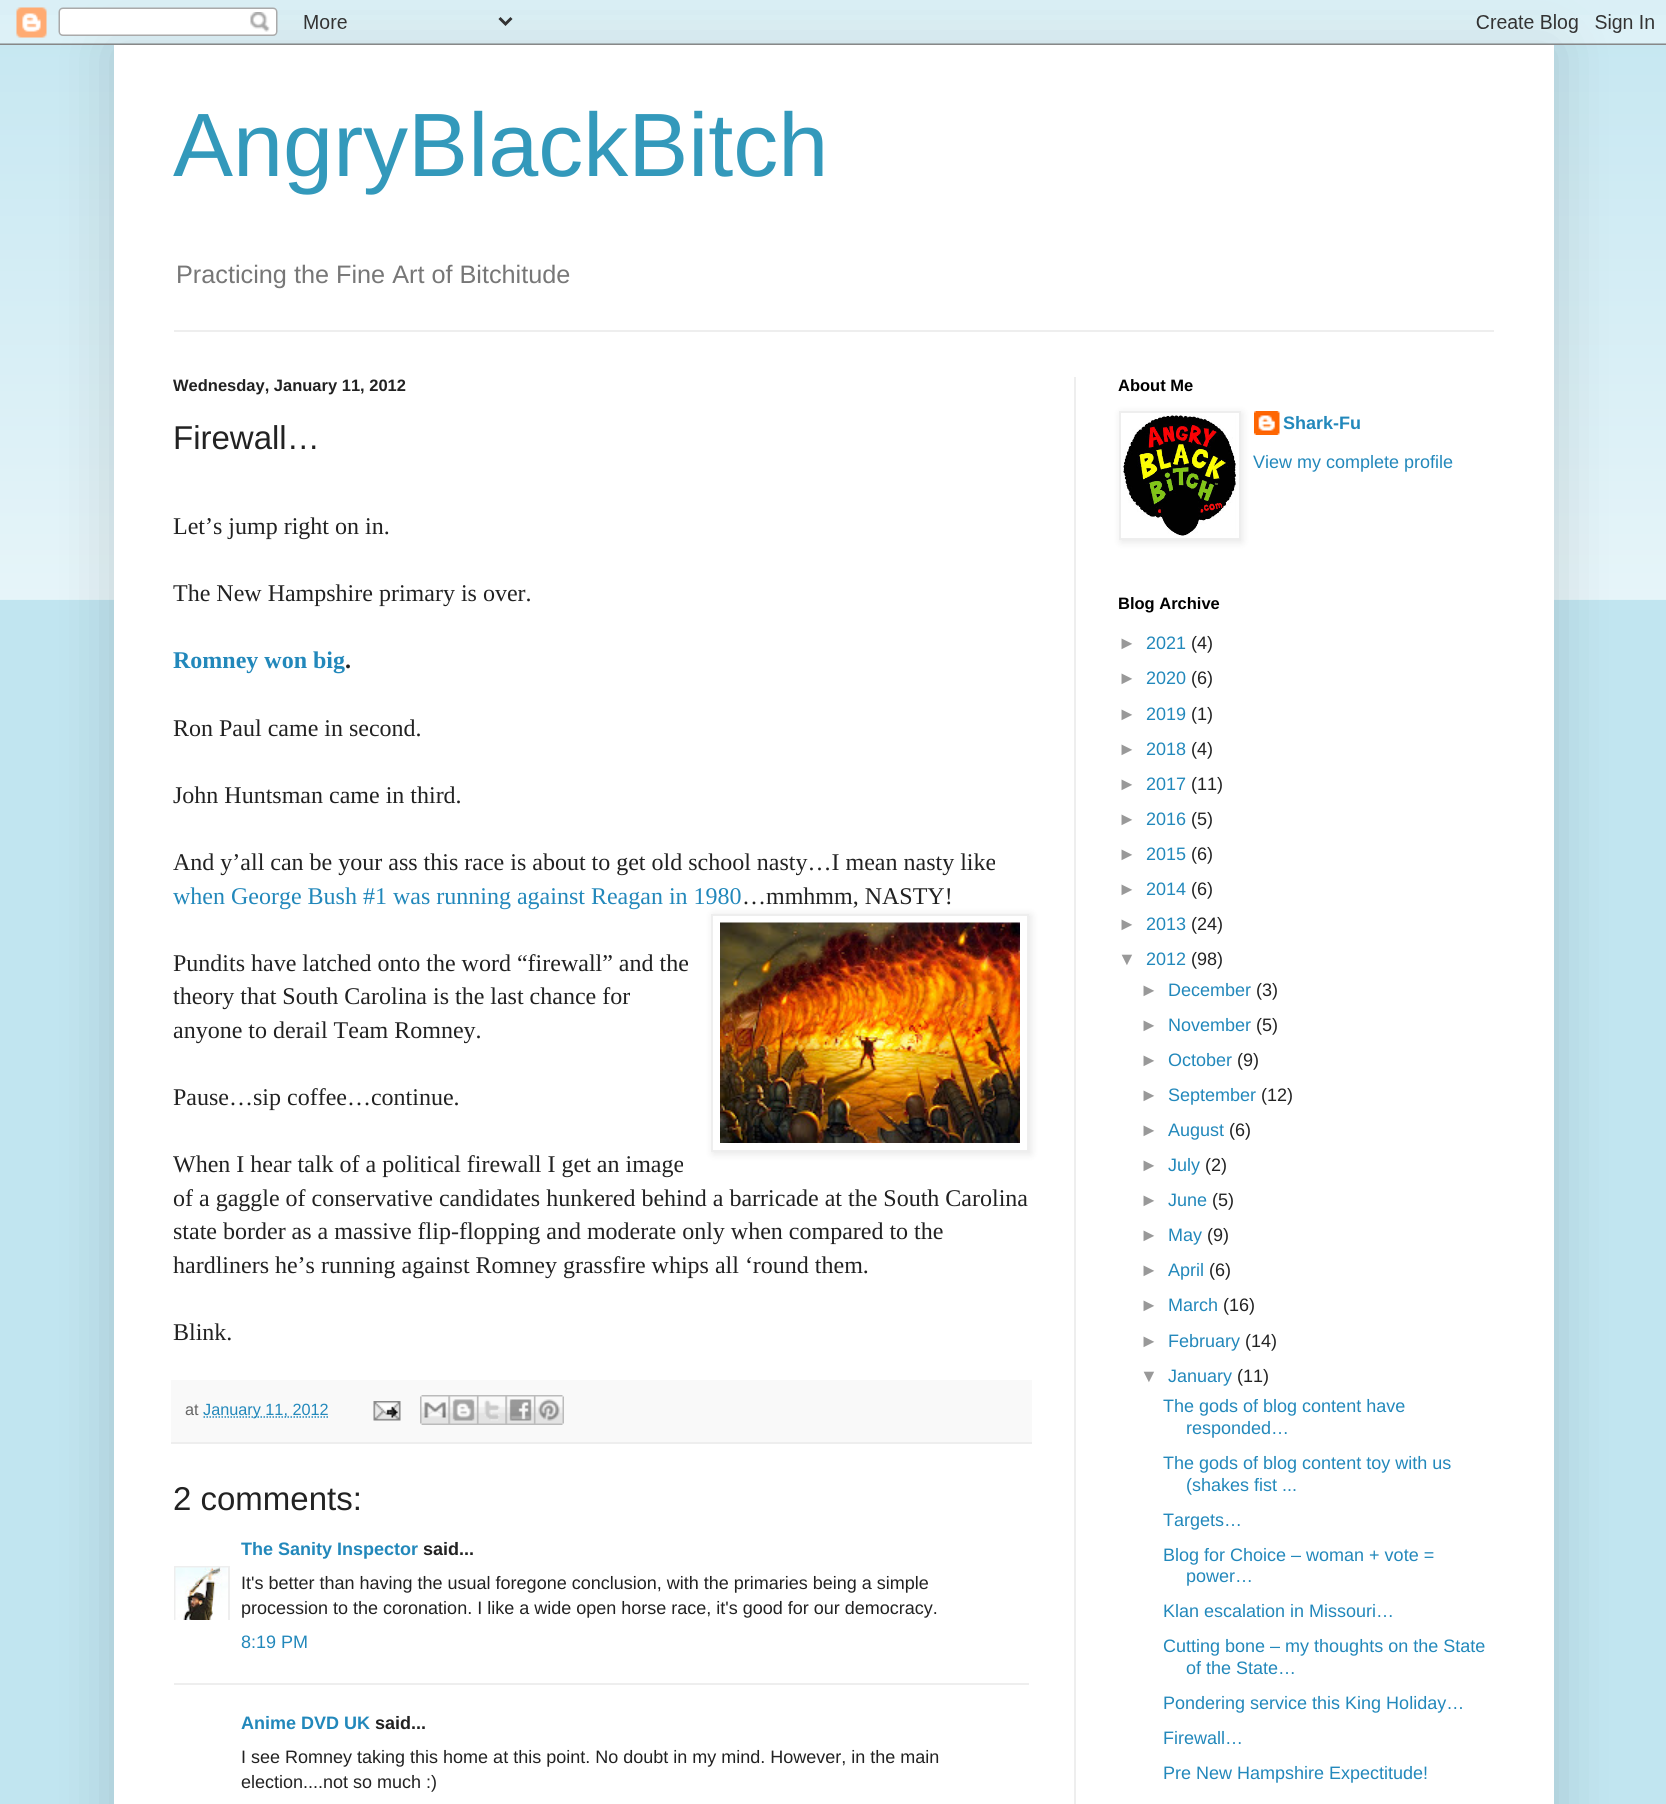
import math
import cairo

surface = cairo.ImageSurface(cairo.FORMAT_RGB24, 1666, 1804)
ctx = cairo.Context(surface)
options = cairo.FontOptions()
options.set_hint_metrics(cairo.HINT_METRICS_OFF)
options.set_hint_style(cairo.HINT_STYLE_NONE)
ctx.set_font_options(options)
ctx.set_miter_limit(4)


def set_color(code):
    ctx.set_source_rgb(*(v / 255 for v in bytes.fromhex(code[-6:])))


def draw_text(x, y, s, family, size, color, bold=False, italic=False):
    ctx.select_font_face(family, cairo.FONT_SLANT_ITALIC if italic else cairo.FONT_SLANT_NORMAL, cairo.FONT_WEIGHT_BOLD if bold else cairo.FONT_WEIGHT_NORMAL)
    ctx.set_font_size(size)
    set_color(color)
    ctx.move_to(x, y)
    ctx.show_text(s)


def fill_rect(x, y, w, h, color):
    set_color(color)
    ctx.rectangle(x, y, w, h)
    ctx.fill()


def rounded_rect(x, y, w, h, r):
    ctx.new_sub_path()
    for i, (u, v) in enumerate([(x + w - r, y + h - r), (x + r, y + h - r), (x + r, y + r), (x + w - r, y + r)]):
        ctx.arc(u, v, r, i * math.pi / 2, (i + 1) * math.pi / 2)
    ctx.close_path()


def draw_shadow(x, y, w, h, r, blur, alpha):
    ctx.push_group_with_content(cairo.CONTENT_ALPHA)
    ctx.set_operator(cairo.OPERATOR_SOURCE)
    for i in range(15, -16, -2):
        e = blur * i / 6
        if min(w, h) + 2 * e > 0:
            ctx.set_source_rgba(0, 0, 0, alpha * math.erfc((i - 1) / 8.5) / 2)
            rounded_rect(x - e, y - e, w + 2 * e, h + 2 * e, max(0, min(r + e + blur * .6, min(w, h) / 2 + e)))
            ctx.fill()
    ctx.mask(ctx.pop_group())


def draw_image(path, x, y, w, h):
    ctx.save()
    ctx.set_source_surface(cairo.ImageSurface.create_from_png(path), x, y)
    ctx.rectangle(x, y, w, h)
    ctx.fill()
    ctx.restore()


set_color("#c1e5f0")
ctx.paint()
draw_image("assets/img2.png", 0, 15, 1666, 585)
set_color("#000000")
draw_shadow(114, 45, 1440, 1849, 0, 30, 0.15)
draw_image("assets/img1.png", 0, 0, 1666, 45)
fill_rect(114, 45, 1440, 1759, "#ffffff")
draw_text(173, 176, "AngryBlackBitch", "Liberation Sans", 90, "#3399bb")
draw_text(176, 283, "Practicing the Fine Art of Bitchitude", "Liberation Sans", 25.25, "#777777")
fill_rect(174, 330, 1320, 2, "#eeeeee")
fill_rect(1074, 377, 2, 1427, "#eeeeee")
draw_text(173, 391, "Wednesday, January 11, 2012", "Liberation Sans", 16.5, "#222222", bold=True)
draw_text(173, 449, "Firewall…", "Liberation Sans", 33, "#222222")
draw_text(173, 534, "Let’s jump right on in.", "Liberation Serif", 24, "#222222")
draw_text(173, 601, "The New Hampshire primary is over.", "Liberation Serif", 24, "#222222")
draw_text(173, 668, "Romney won big", "Liberation Serif", 24, "#2288bb", bold=True)
draw_text(345, 668, ".", "Liberation Serif", 24, "#222222", bold=True)
draw_text(173, 736, "Ron Paul came in second.", "Liberation Serif", 24, "#222222")
draw_text(173, 803, "John Huntsman came in third.", "Liberation Serif", 24, "#222222")
draw_text(173, 870, "And y’all can be your ass this race is about to get old school nasty…I mean nasty like", "Liberation Serif", 24, "#222222")
draw_text(173, 904, "when George Bush #1 was running against Reagan in 1980", "Liberation Serif", 24, "#2288bb")
draw_text(742, 904, "…mmhmm, NASTY!", "Liberation Serif", 24, "#222222")
draw_text(173, 971, "Pundits have latched onto the word “firewall” and the", "Liberation Serif", 24, "#222222")
draw_text(173, 1004, "theory that South Carolina is the last chance for", "Liberation Serif", 24, "#222222")
draw_text(173, 1038, "anyone to derail Team Romney.", "Liberation Serif", 24, "#222222")
ctx.save()
ctx.set_fill_rule(cairo.FILL_RULE_EVEN_ODD)
ctx.new_path()
ctx.move_to(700, 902)
ctx.line_to(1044, 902)
ctx.line_to(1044, 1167)
ctx.line_to(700, 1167)
ctx.close_path()
ctx.move_to(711, 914)
ctx.line_to(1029, 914)
ctx.line_to(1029, 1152)
ctx.line_to(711, 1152)
ctx.close_path()
ctx.clip()
set_color("#000000")
draw_shadow(713, 915, 318, 239, 0, 4, 0.1)
ctx.restore()
ctx.rectangle(712, 915, 316, 236)
set_color("#eeeeee")
ctx.stroke()
draw_image("assets/img3.png", 720, 922, 300, 221)
draw_text(173, 1105, "Pause…sip coffee…continue.", "Liberation Serif", 24, "#222222")
draw_text(173, 1172, "When I hear talk of a political firewall I get an image", "Liberation Serif", 24, "#222222")
draw_text(173, 1206, "of a gaggle of conservative candidates hunkered behind a barricade at the South Carolina", "Liberation Serif", 24, "#222222")
draw_text(173, 1239, "state border as a massive flip-flopping and moderate only when compared to the", "Liberation Serif", 24, "#222222")
draw_text(173, 1273, "hardliners he’s running against Romney grassfire whips all ‘round them.", "Liberation Serif", 24, "#222222")
draw_text(173, 1340, "Blink.", "Liberation Serif", 24, "#222222")
fill_rect(171, 1380, 861, 62, "#f9f9f9")
fill_rect(171, 1442, 861, 2, "#eeeeee")
draw_text(185, 1415, "at", "Liberation Sans", 16.25, "#666666")
ctx.new_path()
ctx.move_to(203.5, 1417)
ctx.line_to(328.5, 1417)
set_color("#2288bb")
ctx.set_line_width(1.5)
ctx.set_dash([1.5, 1.5])
ctx.stroke()
draw_text(203, 1415, "January 11, 2012", "Liberation Sans", 16.25, "#2288bb")
draw_image("assets/img4.png", 373, 1401, 28, 20)
draw_image("assets/img5.png", 420, 1395, 29, 30)
draw_image("assets/img6.png", 448, 1395, 29, 30)
draw_image("assets/img7.png", 477, 1395, 29, 30)
draw_image("assets/img8.png", 505, 1395, 29, 30)
draw_image("assets/img9.png", 534, 1395, 30, 30)
draw_text(173, 1510, "2 comments:", "Liberation Sans", 33, "#222222")
draw_text(241, 1555, "The Sanity Inspector", "Liberation Sans", 18, "#2288bb", bold=True)
draw_text(423, 1555, "said...", "Liberation Sans", 18, "#222222", bold=True)
ctx.save()
ctx.rectangle(174, 1566, 56, 54)
ctx.clip()
ctx.rectangle(175, 1567, 54, 54)
set_color("#eeeeee")
ctx.set_line_width(2)
ctx.set_dash([])
ctx.stroke()
ctx.restore()
draw_image("assets/img10.png", 175, 1567, 53, 53)
draw_text(241, 1589, "It's better than having the usual foregone conclusion, with the primaries being a simple", "Liberation Sans", 18, "#222222")
draw_text(241, 1614, "procession to the coronation. I like a wide open horse race, it's good for our democracy.", "Liberation Sans", 18, "#222222")
draw_text(241, 1648, "8:19 PM", "Liberation Sans", 18, "#2288bb")
fill_rect(174, 1683, 855, 2, "#eeeeee")
draw_text(241, 1729, "Anime DVD UK", "Liberation Sans", 18, "#2288bb", bold=True)
draw_text(375, 1729, "said...", "Liberation Sans", 18, "#222222", bold=True)
draw_text(241, 1763, "I see Romney taking this home at this point. No doubt in my mind. However, in the main", "Liberation Sans", 18, "#222222")
draw_text(241, 1788, "election....not so much :)", "Liberation Sans", 18, "#222222")
draw_text(1118, 391, "About Me", "Liberation Sans", 16.5, "#000000", bold=True)
draw_image("assets/img12.png", 1254, 411, 26, 24)
set_color("#000000")
draw_shadow(1121, 413, 121, 129, 0, 4, 0.1)
set_color("#ffffff")
ctx.rectangle(1120, 412, 120, 127)
ctx.fill_preserve()
set_color("#eeeeee")
ctx.set_line_width(2)
ctx.set_dash([])
ctx.stroke()
draw_image("assets/img11.png", 1123, 415, 113, 121)
draw_text(1283, 429, "Shark-Fu", "Liberation Sans", 18, "#2288bb", bold=True)
draw_text(1253, 468, "View my complete profile", "Liberation Sans", 18, "#2288bb")
draw_text(1118, 609, "Blog Archive", "Liberation Sans", 16.5, "#000000", bold=True)
draw_text(1118, 649, "►", "Liberation Sans", 18, "#999999")
draw_text(1146, 649, "2021", "Liberation Sans", 18, "#2288bb")
draw_text(1191, 649, "(4)", "Liberation Sans", 18, "#222222")
draw_text(1118, 684, "►", "Liberation Sans", 18, "#999999")
draw_text(1146, 684, "2020", "Liberation Sans", 18, "#2288bb")
draw_text(1191, 684, "(6)", "Liberation Sans", 18, "#222222")
draw_text(1118, 720, "►", "Liberation Sans", 18, "#999999")
draw_text(1146, 720, "2019", "Liberation Sans", 18, "#2288bb")
draw_text(1191, 720, "(1)", "Liberation Sans", 18, "#222222")
draw_text(1118, 755, "►", "Liberation Sans", 18, "#999999")
draw_text(1146, 755, "2018", "Liberation Sans", 18, "#2288bb")
draw_text(1191, 755, "(4)", "Liberation Sans", 18, "#222222")
draw_text(1118, 790, "►", "Liberation Sans", 18, "#999999")
draw_text(1146, 790, "2017", "Liberation Sans", 18, "#2288bb")
draw_text(1191, 790, "(11)", "Liberation Sans", 18, "#222222")
draw_text(1118, 825, "►", "Liberation Sans", 18, "#999999")
draw_text(1146, 825, "2016", "Liberation Sans", 18, "#2288bb")
draw_text(1191, 825, "(5)", "Liberation Sans", 18, "#222222")
draw_text(1118, 860, "►", "Liberation Sans", 18, "#999999")
draw_text(1146, 860, "2015", "Liberation Sans", 18, "#2288bb")
draw_text(1191, 860, "(6)", "Liberation Sans", 18, "#222222")
draw_text(1118, 895, "►", "Liberation Sans", 18, "#999999")
draw_text(1146, 895, "2014", "Liberation Sans", 18, "#2288bb")
draw_text(1191, 895, "(6)", "Liberation Sans", 18, "#222222")
draw_text(1118, 930, "►", "Liberation Sans", 18, "#999999")
draw_text(1146, 930, "2013", "Liberation Sans", 18, "#2288bb")
draw_text(1191, 930, "(24)", "Liberation Sans", 18, "#222222")
draw_text(1118, 965, "▼", "Liberation Sans", 18, "#999999")
draw_text(1146, 965, "2012", "Liberation Sans", 18, "#2288bb")
draw_text(1191, 965, "(98)", "Liberation Sans", 18, "#222222")
draw_text(1140, 996, "►", "Liberation Sans", 18, "#999999")
draw_text(1168, 996, "December", "Liberation Sans", 18, "#2288bb")
draw_text(1256, 996, "(3)", "Liberation Sans", 18, "#222222")
draw_text(1140, 1031, "►", "Liberation Sans", 18, "#999999")
draw_text(1168, 1031, "November", "Liberation Sans", 18, "#2288bb")
draw_text(1256, 1031, "(5)", "Liberation Sans", 18, "#222222")
draw_text(1140, 1066, "►", "Liberation Sans", 18, "#999999")
draw_text(1168, 1066, "October", "Liberation Sans", 18, "#2288bb")
draw_text(1237, 1066, "(9)", "Liberation Sans", 18, "#222222")
draw_text(1140, 1101, "►", "Liberation Sans", 18, "#999999")
draw_text(1168, 1101, "September", "Liberation Sans", 18, "#2288bb")
draw_text(1261, 1101, "(12)", "Liberation Sans", 18, "#222222")
draw_text(1140, 1136, "►", "Liberation Sans", 18, "#999999")
draw_text(1168, 1136, "August", "Liberation Sans", 18, "#2288bb")
draw_text(1229, 1136, "(6)", "Liberation Sans", 18, "#222222")
draw_text(1140, 1171, "►", "Liberation Sans", 18, "#999999")
draw_text(1168, 1171, "July", "Liberation Sans", 18, "#2288bb")
draw_text(1205, 1171, "(2)", "Liberation Sans", 18, "#222222")
draw_text(1140, 1206, "►", "Liberation Sans", 18, "#999999")
draw_text(1168, 1206, "June", "Liberation Sans", 18, "#2288bb")
draw_text(1212, 1206, "(5)", "Liberation Sans", 18, "#222222")
draw_text(1140, 1241, "►", "Liberation Sans", 18, "#999999")
draw_text(1168, 1241, "May", "Liberation Sans", 18, "#2288bb")
draw_text(1207, 1241, "(9)", "Liberation Sans", 18, "#222222")
draw_text(1140, 1276, "►", "Liberation Sans", 18, "#999999")
draw_text(1168, 1276, "April", "Liberation Sans", 18, "#2288bb")
draw_text(1209, 1276, "(6)", "Liberation Sans", 18, "#222222")
draw_text(1140, 1311, "►", "Liberation Sans", 18, "#999999")
draw_text(1168, 1311, "March", "Liberation Sans", 18, "#2288bb")
draw_text(1223, 1311, "(16)", "Liberation Sans", 18, "#222222")
draw_text(1140, 1347, "►", "Liberation Sans", 18, "#999999")
draw_text(1168, 1347, "February", "Liberation Sans", 18, "#2288bb")
draw_text(1245, 1347, "(14)", "Liberation Sans", 18, "#222222")
draw_text(1140, 1382, "▼", "Liberation Sans", 18, "#999999")
draw_text(1168, 1382, "January", "Liberation Sans", 18, "#2288bb")
draw_text(1237, 1382, "(11)", "Liberation Sans", 18, "#222222")
draw_text(1163, 1412, "The gods of blog content have", "Liberation Sans", 18, "#2288bb")
draw_text(1186, 1434, "responded…", "Liberation Sans", 18, "#2288bb")
draw_text(1163, 1469, "The gods of blog content toy with us", "Liberation Sans", 18, "#2288bb")
draw_text(1186, 1491, "(shakes fist ...", "Liberation Sans", 18, "#2288bb")
draw_text(1163, 1526, "Targets…", "Liberation Sans", 18, "#2288bb")
draw_text(1163, 1561, "Blog for Choice – woman + vote =", "Liberation Sans", 18, "#2288bb")
draw_text(1186, 1582, "power…", "Liberation Sans", 18, "#2288bb")
draw_text(1163, 1617, "Klan escalation in Missouri…", "Liberation Sans", 18, "#2288bb")
draw_text(1163, 1652, "Cutting bone – my thoughts on the State", "Liberation Sans", 18, "#2288bb")
draw_text(1186, 1674, "of the State…", "Liberation Sans", 18, "#2288bb")
draw_text(1163, 1709, "Pondering service this King Holiday…", "Liberation Sans", 18, "#2288bb")
draw_text(1163, 1744, "Firewall…", "Liberation Sans", 18, "#2288bb")
draw_text(1163, 1779, "Pre New Hampshire Expectitude!", "Liberation Sans", 18, "#2288bb")
surface.write_to_png("output.png")
